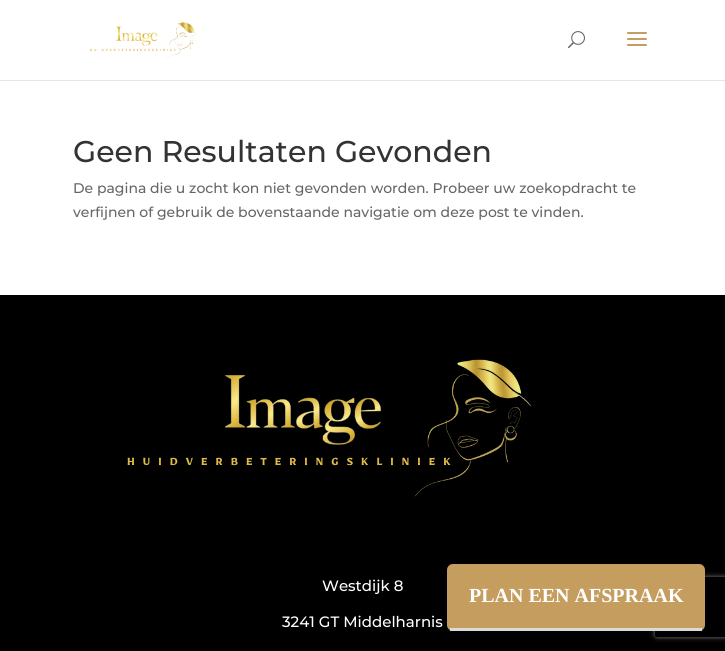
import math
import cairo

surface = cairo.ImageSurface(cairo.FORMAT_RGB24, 725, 651)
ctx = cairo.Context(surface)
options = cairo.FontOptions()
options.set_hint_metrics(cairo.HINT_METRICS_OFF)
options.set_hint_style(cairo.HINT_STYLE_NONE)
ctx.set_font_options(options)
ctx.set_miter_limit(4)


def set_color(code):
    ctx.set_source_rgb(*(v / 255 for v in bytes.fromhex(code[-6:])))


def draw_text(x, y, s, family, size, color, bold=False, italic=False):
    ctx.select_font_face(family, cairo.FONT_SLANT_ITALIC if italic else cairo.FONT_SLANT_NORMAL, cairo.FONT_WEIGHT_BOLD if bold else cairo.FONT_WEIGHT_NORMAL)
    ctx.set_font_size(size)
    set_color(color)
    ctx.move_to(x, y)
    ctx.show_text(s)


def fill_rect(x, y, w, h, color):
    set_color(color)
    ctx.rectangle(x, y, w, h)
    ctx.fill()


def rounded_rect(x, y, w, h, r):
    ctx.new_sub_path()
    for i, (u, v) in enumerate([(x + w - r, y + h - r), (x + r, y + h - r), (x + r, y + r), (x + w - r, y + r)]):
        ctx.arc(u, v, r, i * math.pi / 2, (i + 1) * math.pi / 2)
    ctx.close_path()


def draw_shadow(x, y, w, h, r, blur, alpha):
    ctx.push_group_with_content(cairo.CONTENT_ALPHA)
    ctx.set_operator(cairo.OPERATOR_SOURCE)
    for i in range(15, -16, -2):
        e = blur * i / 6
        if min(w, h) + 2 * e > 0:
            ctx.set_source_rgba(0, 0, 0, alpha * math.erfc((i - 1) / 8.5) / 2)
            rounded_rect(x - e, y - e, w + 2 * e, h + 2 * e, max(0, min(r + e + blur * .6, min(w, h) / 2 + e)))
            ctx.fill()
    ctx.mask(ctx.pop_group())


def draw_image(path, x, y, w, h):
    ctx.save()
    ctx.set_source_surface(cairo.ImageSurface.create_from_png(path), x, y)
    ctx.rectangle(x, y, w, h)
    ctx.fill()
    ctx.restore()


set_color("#ffffff")
ctx.paint()
fill_rect(0, 80, 725, 1, "#e6e6e6")
draw_image("assets/img1.png", 90, 22, 107, 37)
draw_image("assets/img2.png", 568, 31, 17, 18)
draw_image("assets/img3.png", 627, 32, 20, 14)
draw_text(73, 162, "Geen Resultaten Gevonden", "Montserrat Medium", 30, "#333333")
draw_text(73, 193, "De pagina die u zocht kon niet gevonden worden. Probeer uw zoekopdracht te", "Montserrat Medium", 14, "#666666")
draw_text(73, 217, "verfijnen of gebruik de bovenstaande navigatie om deze post te vinden.", "Montserrat Medium", 14, "#666666")
fill_rect(0, 295, 725, 356, "#000000")
draw_image("assets/img4.png", 127, 359, 405, 138)
draw_text(322, 591, "Westdijk 8", "Montserrat Medium", 15, "#ffffff")
draw_text(282, 627, "3241 GT Middelharnis", "Montserrat Medium", 15, "#ffffff")
ctx.save()
ctx.set_fill_rule(cairo.FILL_RULE_EVEN_ODD)
ctx.new_path()
ctx.move_to(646, 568)
ctx.line_to(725, 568)
ctx.line_to(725, 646)
ctx.line_to(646, 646)
ctx.close_path()
ctx.move_to(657, 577)
ctx.line_to(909, 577)
ctx.curve_to(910, 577, 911, 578, 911, 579)
ctx.line_to(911, 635)
ctx.curve_to(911, 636, 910, 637, 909, 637)
ctx.line_to(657, 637)
ctx.curve_to(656, 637, 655, 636, 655, 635)
ctx.line_to(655, 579)
ctx.curve_to(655, 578, 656, 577, 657, 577)
ctx.close_path()
ctx.clip()
set_color("#808080")
draw_shadow(655, 577, 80, 60, 2, 2.5, 1)
ctx.restore()
set_color("#c49d5f")
rounded_rect(447, 564, 258, 67, 6)
ctx.fill()
fill_rect(450, 628, 252, 3, "#dadada")
draw_text(469, 602, "PLAN EEN AFSPRAAK", "Liberation Serif", 20, "#ffffff", bold=True)
surface.write_to_png("output.png")
